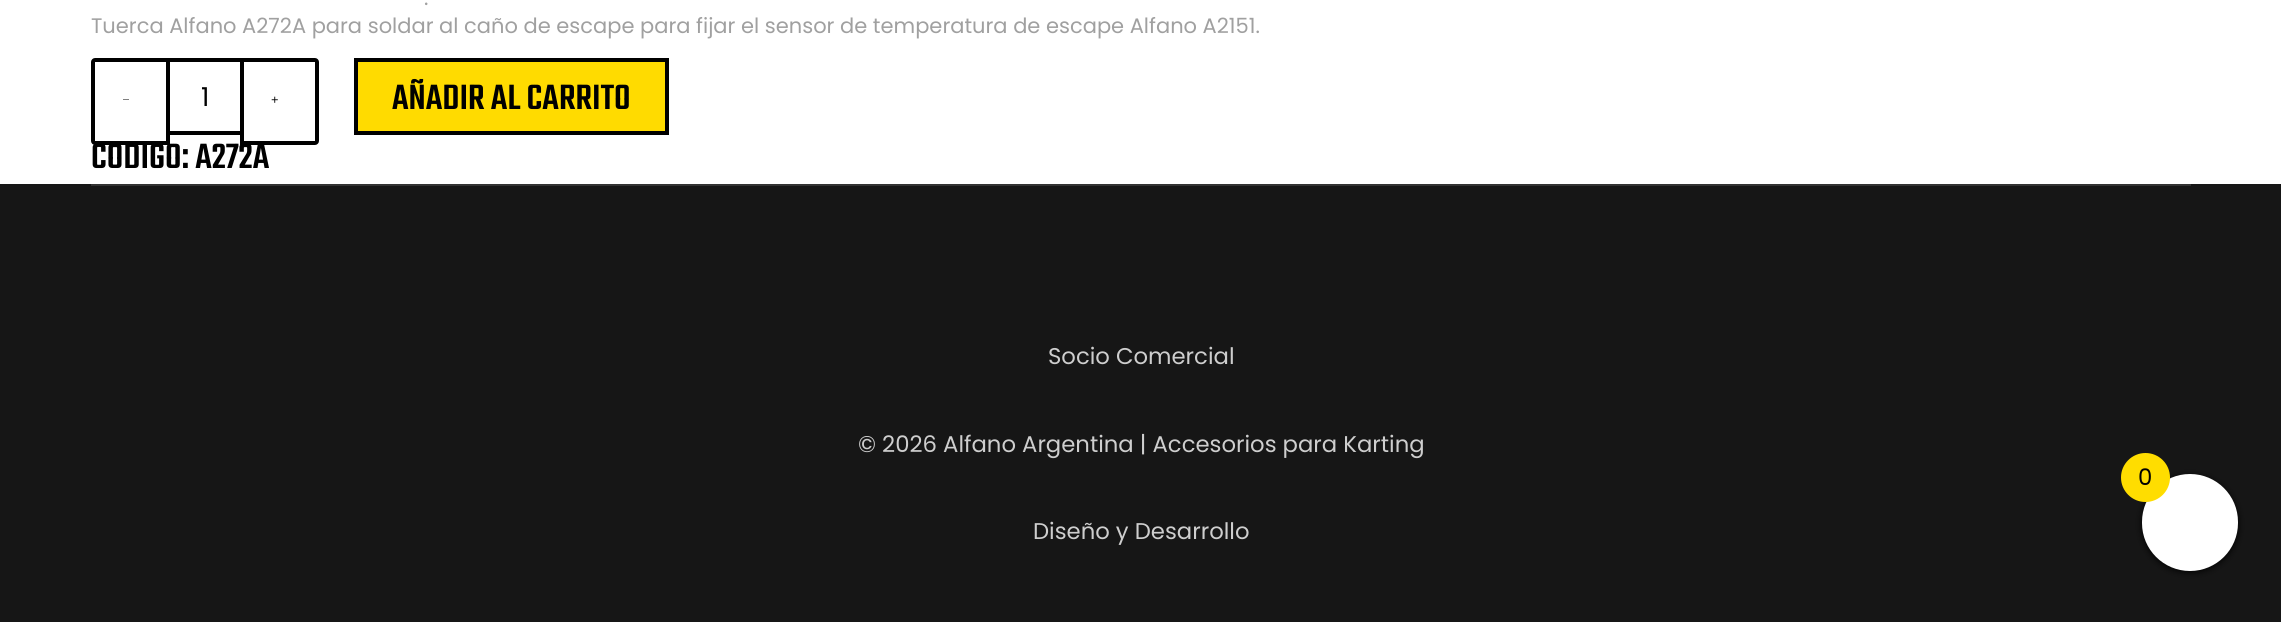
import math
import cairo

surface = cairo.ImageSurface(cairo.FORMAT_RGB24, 2281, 622)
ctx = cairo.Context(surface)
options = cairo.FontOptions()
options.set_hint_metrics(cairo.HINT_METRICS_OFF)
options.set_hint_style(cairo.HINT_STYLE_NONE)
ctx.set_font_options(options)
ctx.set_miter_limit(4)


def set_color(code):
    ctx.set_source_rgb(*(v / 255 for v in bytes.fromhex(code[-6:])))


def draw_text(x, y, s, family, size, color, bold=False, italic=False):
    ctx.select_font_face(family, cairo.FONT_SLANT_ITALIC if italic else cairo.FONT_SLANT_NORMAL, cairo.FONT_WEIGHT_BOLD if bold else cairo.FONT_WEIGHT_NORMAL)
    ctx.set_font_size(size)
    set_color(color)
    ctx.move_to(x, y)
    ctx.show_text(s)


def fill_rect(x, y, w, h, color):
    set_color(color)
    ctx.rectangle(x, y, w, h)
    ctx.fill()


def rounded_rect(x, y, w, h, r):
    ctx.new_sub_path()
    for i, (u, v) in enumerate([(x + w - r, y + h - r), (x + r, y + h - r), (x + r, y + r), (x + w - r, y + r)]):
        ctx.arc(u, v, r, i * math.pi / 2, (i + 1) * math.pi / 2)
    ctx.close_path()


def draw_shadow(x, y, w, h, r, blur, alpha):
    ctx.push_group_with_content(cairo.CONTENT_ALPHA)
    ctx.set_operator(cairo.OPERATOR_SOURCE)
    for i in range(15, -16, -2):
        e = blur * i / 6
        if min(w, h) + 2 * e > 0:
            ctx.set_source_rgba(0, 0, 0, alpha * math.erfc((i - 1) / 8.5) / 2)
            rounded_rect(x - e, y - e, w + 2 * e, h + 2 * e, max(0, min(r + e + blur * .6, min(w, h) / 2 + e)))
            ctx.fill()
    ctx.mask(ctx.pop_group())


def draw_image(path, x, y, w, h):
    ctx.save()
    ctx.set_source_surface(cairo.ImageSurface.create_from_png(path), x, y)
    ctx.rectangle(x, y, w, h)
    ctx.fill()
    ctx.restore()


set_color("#ffffff")
ctx.paint()
draw_text(424, 5, ".", "Poppins", 21, "#a0a0a0")
draw_text(91, 33, "Tuerca Alfano A272A para soldar al caño de escape para fijar el sensor de temperatura de escape Alfano A2151.", "Poppins", 21, "#a0a0a0")
draw_text(91, 168, "CÓDIGO: A272A", "Teko Medium", 38.5, "#000000")
set_color("#ffffff")
ctx.new_path()
ctx.move_to(95, 60)
ctx.line_to(168, 60)
ctx.line_to(168, 143)
ctx.line_to(95, 143)
ctx.curve_to(94, 143, 93, 142, 93, 141)
ctx.line_to(93, 62)
ctx.curve_to(93, 61, 94, 60, 95, 60)
ctx.close_path()
ctx.fill_preserve()
set_color("#000000")
ctx.set_line_width(4)
ctx.stroke()
ctx.new_path()
ctx.move_to(123, 99.5)
ctx.line_to(123, 100)
ctx.line_to(129, 100)
ctx.line_to(129, 99.5)
ctx.close_path()
ctx.fill()
fill_rect(170, 58, 70, 4, "#000000")
fill_rect(170, 131, 70, 4, "#000000")
draw_text(201, 106, "1", "Poppins", 26, "#000000")
set_color("#ffffff")
ctx.new_path()
ctx.move_to(242, 60)
ctx.line_to(315, 60)
ctx.curve_to(316, 60, 317, 61, 317, 62)
ctx.line_to(317, 141)
ctx.curve_to(317, 142, 316, 143, 315, 143)
ctx.line_to(242, 143)
ctx.close_path()
ctx.fill_preserve()
set_color("#000000")
ctx.stroke()
draw_image("assets/img1.png", 271, 96, 7, 7)
set_color("#ffdb00")
ctx.rectangle(356, 60, 311, 73)
ctx.fill_preserve()
set_color("#000000")
ctx.stroke()
draw_text(392, 109, "AÑADIR AL CARRITO", "Teko Medium", 38.5, "#000000")
fill_rect(0, 184, 2281, 438, "#161616")
fill_rect(91, 184, 2100, 2, "#323232")
draw_text(1048, 364, "Socio Comercial", "Poppins", 22.75, "#cecece")
draw_text(858, 452, "© 2026 Alfano Argentina | Accesorios para Karting", "Poppins", 22.75, "#cecece")
draw_text(1033, 539, "Diseño y Desarrollo", "Poppins", 22.75, "#cecece")
set_color("#000000")
draw_shadow(2142, 476, 96, 96, 48, 3.5, 1)
set_color("#ffffff")
rounded_rect(2142, 474, 96, 97, 48)
ctx.fill()
set_color("#ffdd00")
ctx.arc(2145.5, 477.5, 24.5, 0, 2 * math.pi)
ctx.fill()
draw_text(2138, 485, "0", "Poppins", 22.75, "#000000")
surface.write_to_png("output.png")
